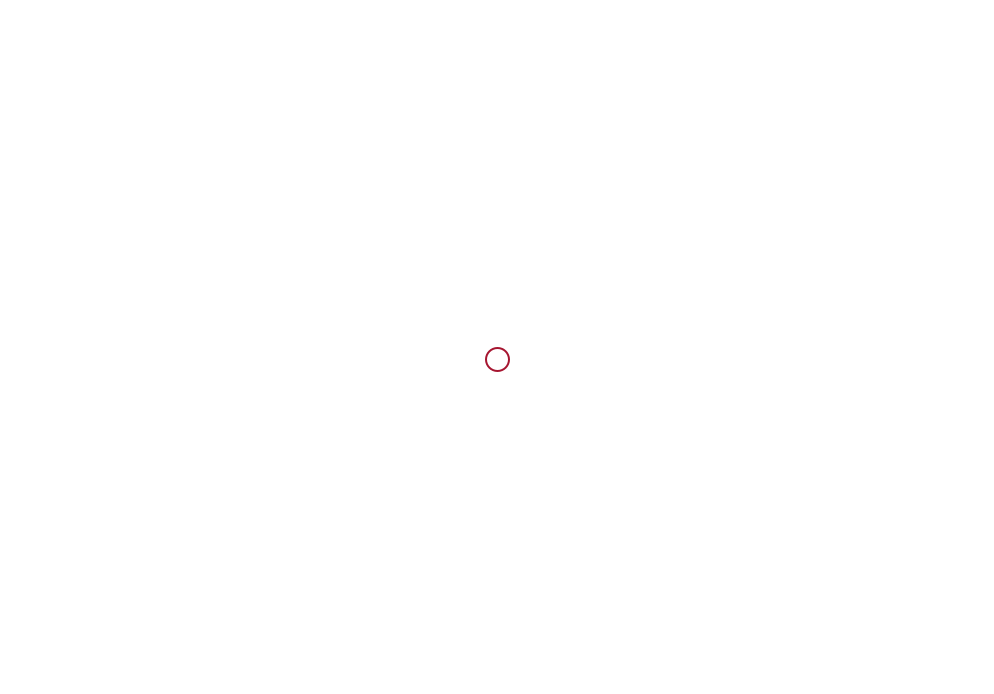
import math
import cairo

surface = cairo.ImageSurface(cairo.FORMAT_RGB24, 994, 694)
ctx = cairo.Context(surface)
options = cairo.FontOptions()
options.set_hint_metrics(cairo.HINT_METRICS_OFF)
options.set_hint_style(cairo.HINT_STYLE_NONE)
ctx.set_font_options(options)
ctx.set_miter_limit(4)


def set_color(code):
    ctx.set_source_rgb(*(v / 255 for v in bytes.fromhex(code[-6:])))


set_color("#ffffff")
ctx.paint()
ctx.arc(497.5, 359.5, 11.5, 0, 2 * math.pi)
set_color("#a61530")
ctx.stroke()
surface.write_to_png("output.png")
